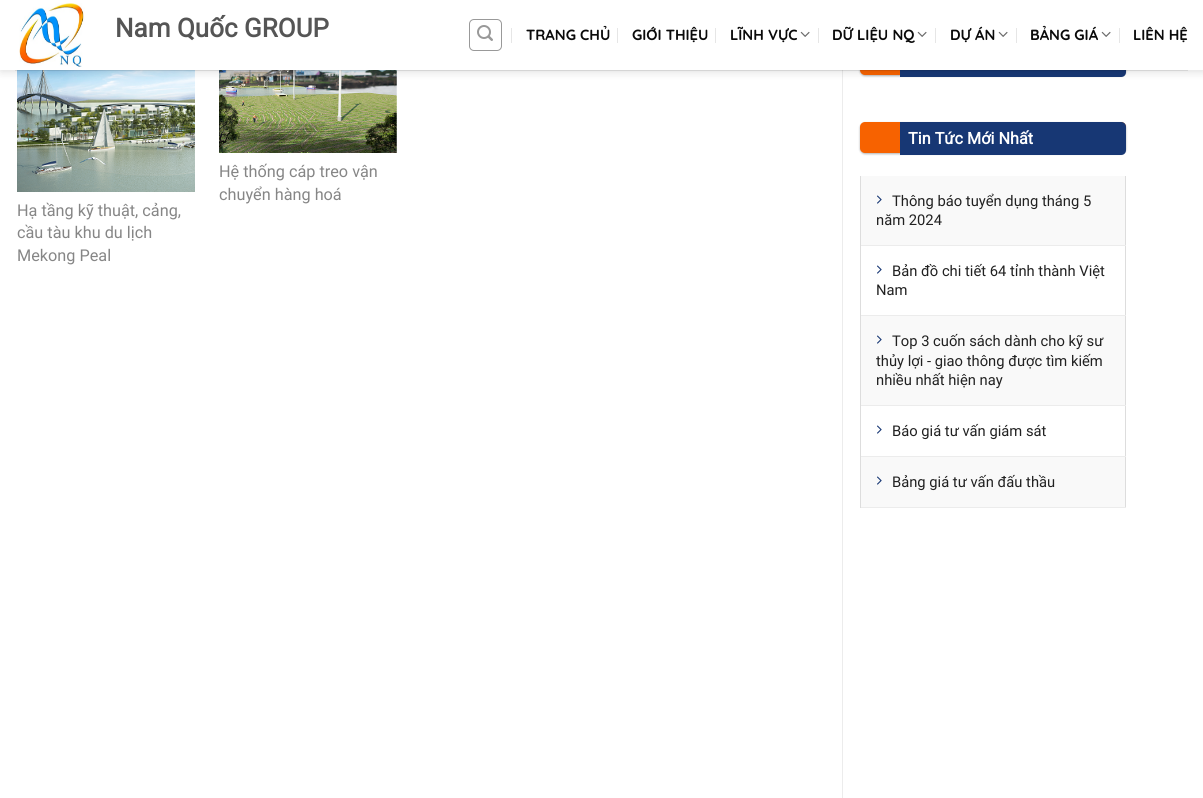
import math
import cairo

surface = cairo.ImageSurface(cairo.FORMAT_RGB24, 1203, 798)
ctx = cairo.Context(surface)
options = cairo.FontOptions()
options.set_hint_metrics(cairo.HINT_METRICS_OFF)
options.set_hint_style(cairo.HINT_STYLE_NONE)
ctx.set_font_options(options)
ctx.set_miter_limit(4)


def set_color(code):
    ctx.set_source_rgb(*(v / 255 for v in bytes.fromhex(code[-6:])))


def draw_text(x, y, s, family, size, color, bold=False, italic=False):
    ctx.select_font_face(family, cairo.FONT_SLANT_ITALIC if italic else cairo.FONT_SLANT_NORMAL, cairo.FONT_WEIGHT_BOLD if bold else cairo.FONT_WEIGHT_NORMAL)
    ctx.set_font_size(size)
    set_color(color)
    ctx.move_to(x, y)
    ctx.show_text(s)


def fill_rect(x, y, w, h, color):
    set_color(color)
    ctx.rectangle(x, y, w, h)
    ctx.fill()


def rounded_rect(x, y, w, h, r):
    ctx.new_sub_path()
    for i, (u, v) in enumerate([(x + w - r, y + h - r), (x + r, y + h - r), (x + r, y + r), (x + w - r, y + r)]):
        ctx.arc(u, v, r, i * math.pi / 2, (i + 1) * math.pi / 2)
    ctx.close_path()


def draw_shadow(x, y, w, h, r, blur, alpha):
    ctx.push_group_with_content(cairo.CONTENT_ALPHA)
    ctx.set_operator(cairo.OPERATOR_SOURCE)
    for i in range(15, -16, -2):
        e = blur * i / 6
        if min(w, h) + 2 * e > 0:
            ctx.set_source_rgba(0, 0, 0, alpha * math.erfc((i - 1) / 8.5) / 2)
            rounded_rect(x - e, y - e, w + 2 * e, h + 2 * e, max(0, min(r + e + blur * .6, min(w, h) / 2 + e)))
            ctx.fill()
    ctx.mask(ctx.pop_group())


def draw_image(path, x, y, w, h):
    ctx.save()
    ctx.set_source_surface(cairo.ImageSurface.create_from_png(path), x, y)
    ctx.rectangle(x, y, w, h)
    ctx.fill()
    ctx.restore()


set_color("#ffffff")
ctx.paint()
draw_image("assets/img4.png", 219, 70, 178, 83)
draw_image("assets/img5.png", 17, 70, 178, 122)
fill_rect(842, 70, 1, 728, "#ececec")
set_color("#000000")
draw_shadow(860, 45, 266, 31, 5, 1, 0.3)
set_color("#f76200")
rounded_rect(860, 44, 266, 31, 5)
ctx.fill()
set_color("#173774")
ctx.new_path()
ctx.move_to(900, 44)
ctx.line_to(1121, 44)
ctx.curve_to(1124, 44, 1126, 46, 1126, 49)
ctx.line_to(1126, 72)
ctx.curve_to(1126, 75, 1124, 77, 1121, 77)
ctx.line_to(900, 77)
ctx.close_path()
ctx.fill()
set_color("#000000")
draw_shadow(1, 1, 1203, 70, 0, 5, 0.15)
fill_rect(0, 0, 1203, 70, "#ffffff")
draw_image("assets/img1.png", 19, 3, 66, 64)
draw_text(115, 37, "Nam Quốc GROUP", "Roboto", 26, "#555555", bold=True)
rounded_rect(469.5, 19.5, 32, 31, 4.5)
set_color("#999999")
ctx.set_line_width(1)
ctx.stroke()
draw_image("assets/img2.png", 477, 25, 16, 16)
fill_rect(511, 28, 1, 15, "#e6e6e6")
draw_text(526, 40, "TRANG CHỦ", "Quicksand", 14.75, "#0a0a0a", bold=True)
fill_rect(617, 28, 1, 15, "#e6e6e6")
draw_text(632, 40, "GIỚI THIỆU", "Quicksand", 14.75, "#0a0a0a", bold=True)
fill_rect(715, 28, 1, 15, "#e6e6e6")
draw_text(730, 40, "LĨNH VỰC", "Quicksand", 14.75, "#0a0a0a", bold=True)
draw_image("assets/img3.png", 800, 31, 10, 6)
fill_rect(818, 28, 1, 15, "#e6e6e6")
draw_text(832, 40, "DỮ LIỆU NQ", "Quicksand", 14.75, "#0a0a0a", bold=True)
draw_image("assets/img3.png", 917, 31, 10, 6)
fill_rect(935, 28, 1, 15, "#e6e6e6")
draw_text(950, 40, "DỰ ÁN", "Quicksand", 14.75, "#0a0a0a", bold=True)
draw_image("assets/img3.png", 998, 31, 10, 6)
fill_rect(1016, 28, 1, 15, "#e6e6e6")
draw_text(1030, 40, "BẢNG GIÁ", "Quicksand", 14.75, "#0a0a0a", bold=True)
draw_image("assets/img3.png", 1101, 31, 10, 6)
fill_rect(1119, 28, 1, 15, "#e6e6e6")
draw_text(1133, 40, "LIÊN HỆ", "Quicksand", 14.75, "#0a0a0a", bold=True)
ctx.set_source_rgba(0.039, 0.039, 0.039, 0.1)
ctx.rectangle(15, 70, 1173, 1)
ctx.fill()
draw_text(219, 177, "Hệ thống cáp treo vận", "Roboto", 16.25, "#868686")
draw_text(219, 200, "chuyển hàng hoá", "Roboto", 16.25, "#868686")
draw_text(17, 216, "Hạ tầng kỹ thuật, cảng,", "Roboto", 16.25, "#868686")
draw_text(17, 238, "cầu tàu khu du lịch", "Roboto", 16.25, "#868686")
draw_text(17, 261, "Mekong Peal", "Roboto", 16.25, "#868686")
set_color("#000000")
draw_shadow(860, 123, 266, 31, 5, 1, 0.3)
set_color("#f76200")
rounded_rect(860, 122, 266, 31, 5)
ctx.fill()
set_color("#173774")
ctx.new_path()
ctx.move_to(900, 122)
ctx.line_to(1121, 122)
ctx.curve_to(1124, 122, 1126, 124, 1126, 127)
ctx.line_to(1126, 150)
ctx.curve_to(1126, 153, 1124, 155, 1121, 155)
ctx.line_to(900, 155)
ctx.close_path()
ctx.fill()
draw_text(908, 144, "Tin Tức Mới Nhất", "Roboto", 16.25, "#ffffff", bold=True)
fill_rect(861, 176, 264, 69, "#f9f9f9")
fill_rect(1125, 176, 1, 332, "#dddddd")
fill_rect(860, 245, 266, 1, "#ececec")
fill_rect(860, 176, 1, 70, "#dddddd")
draw_image("assets/img6.png", 877, 195, 5, 9)
draw_text(892, 206, "Thông báo tuyển dụng tháng 5", "Roboto", 14.75, "#212121")
draw_text(876, 225, "năm 2024", "Roboto", 14.75, "#212121")
fill_rect(860, 315, 266, 1, "#ececec")
fill_rect(860, 246, 1, 70, "#dddddd")
draw_image("assets/img7.png", 877, 265, 5, 9)
draw_text(892, 276, "Bản đồ chi tiết 64 tỉnh thành Việt", "Roboto", 14.75, "#212121")
draw_text(876, 295, "Nam", "Roboto", 14.75, "#212121")
fill_rect(861, 316, 264, 89, "#f9f9f9")
fill_rect(860, 405, 266, 1, "#ececec")
fill_rect(860, 316, 1, 90, "#dddddd")
draw_image("assets/img6.png", 877, 335, 5, 9)
draw_text(892, 346, "Top 3 cuốn sách dành cho kỹ sư", "Roboto", 14.75, "#212121")
draw_text(876, 366, "thủy lợi - giao thông được tìm kiếm", "Roboto", 14.75, "#212121")
draw_text(876, 385, "nhiều nhất hiện nay", "Roboto", 14.75, "#212121")
fill_rect(860, 456, 266, 1, "#ececec")
fill_rect(860, 406, 1, 51, "#dddddd")
draw_image("assets/img7.png", 877, 425, 5, 9)
draw_text(892, 436, "Báo giá tư vấn giám sát", "Roboto", 14.75, "#212121")
fill_rect(861, 457, 264, 50, "#f9f9f9")
fill_rect(860, 507, 266, 1, "#ececec")
fill_rect(860, 457, 1, 51, "#dddddd")
draw_image("assets/img6.png", 877, 476, 5, 9)
draw_text(892, 487, "Bảng giá tư vấn đấu thầu", "Roboto", 14.75, "#212121")
surface.write_to_png("output.png")
